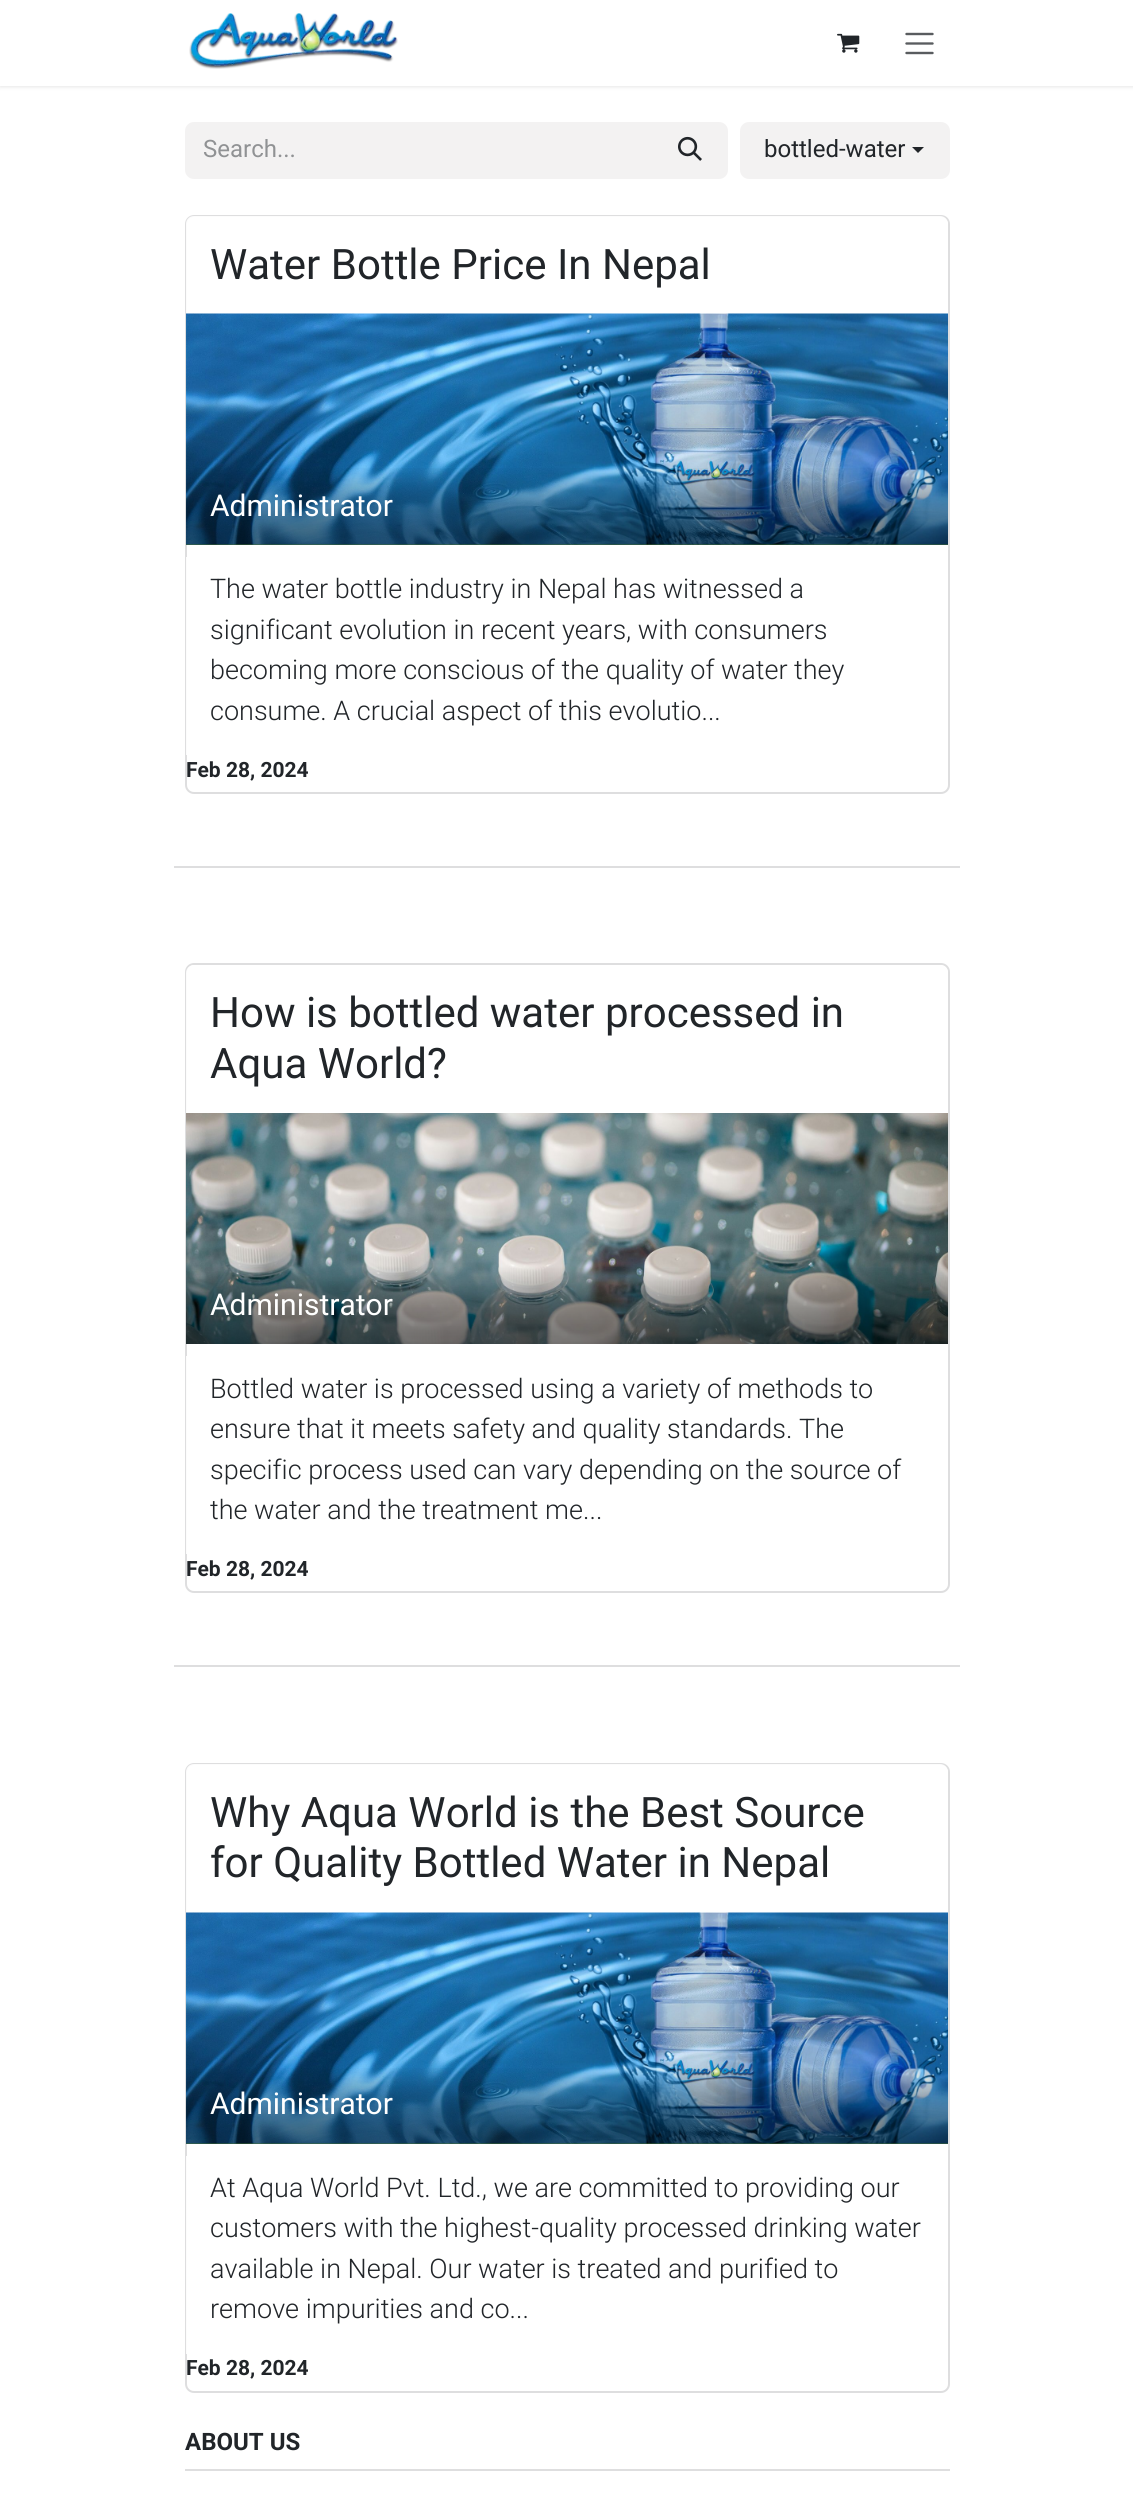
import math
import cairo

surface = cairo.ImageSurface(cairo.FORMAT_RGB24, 1133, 2508)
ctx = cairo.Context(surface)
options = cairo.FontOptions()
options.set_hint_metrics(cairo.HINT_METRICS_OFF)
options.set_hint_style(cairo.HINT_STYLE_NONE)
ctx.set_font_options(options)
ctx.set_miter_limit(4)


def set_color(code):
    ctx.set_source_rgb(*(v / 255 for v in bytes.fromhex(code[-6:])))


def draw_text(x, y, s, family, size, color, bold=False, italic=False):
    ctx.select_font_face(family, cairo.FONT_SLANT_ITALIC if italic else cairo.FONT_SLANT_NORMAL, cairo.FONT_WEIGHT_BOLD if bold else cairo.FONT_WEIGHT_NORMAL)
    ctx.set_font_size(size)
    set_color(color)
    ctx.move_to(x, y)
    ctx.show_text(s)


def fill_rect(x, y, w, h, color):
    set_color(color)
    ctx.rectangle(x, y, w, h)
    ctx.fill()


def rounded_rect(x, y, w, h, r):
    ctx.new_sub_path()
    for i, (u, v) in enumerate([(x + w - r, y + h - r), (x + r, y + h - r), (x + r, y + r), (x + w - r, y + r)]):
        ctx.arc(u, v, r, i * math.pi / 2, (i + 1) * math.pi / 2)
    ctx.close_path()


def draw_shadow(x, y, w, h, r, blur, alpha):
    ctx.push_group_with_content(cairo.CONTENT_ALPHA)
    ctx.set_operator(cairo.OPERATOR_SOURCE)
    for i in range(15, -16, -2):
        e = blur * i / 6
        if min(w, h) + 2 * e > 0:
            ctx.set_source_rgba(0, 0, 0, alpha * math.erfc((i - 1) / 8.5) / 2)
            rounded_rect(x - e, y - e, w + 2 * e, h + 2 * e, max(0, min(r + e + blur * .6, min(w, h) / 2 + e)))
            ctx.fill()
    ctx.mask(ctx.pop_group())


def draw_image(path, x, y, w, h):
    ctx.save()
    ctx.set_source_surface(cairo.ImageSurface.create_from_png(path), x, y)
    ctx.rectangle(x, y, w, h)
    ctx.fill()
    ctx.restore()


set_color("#ffffff")
ctx.paint()
set_color("#000000")
draw_shadow(0, 2, 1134, 85, 0, 2, 0.1)
fill_rect(0, 0, 1133, 86, "#ffffff")
draw_image("assets/img1.png", 189, 13, 209, 56)
draw_image("assets/img2.png", 837, 33, 23, 20)
ctx.new_path()
ctx.move_to(906.5, 34)
ctx.line_to(932.5, 34)
ctx.move_to(906.5, 43.5)
ctx.line_to(932.5, 43.5)
ctx.move_to(906.5, 53)
ctx.line_to(932.5, 53)
set_color("#595c5f")
ctx.set_line_width(2.4)
ctx.set_line_cap(cairo.LINE_CAP_ROUND)
ctx.stroke()
set_color("#f3f2f2")
ctx.new_path()
ctx.move_to(194, 122)
ctx.line_to(654, 122)
ctx.line_to(654, 179)
ctx.line_to(194, 179)
ctx.curve_to(189, 179, 185, 175, 185, 170)
ctx.line_to(185, 131)
ctx.curve_to(185, 126, 189, 122, 194, 122)
ctx.close_path()
ctx.fill()
draw_text(203, 157, "Search...", "Roboto", 24, "#909294")
set_color("#f3f2f2")
ctx.new_path()
ctx.move_to(654, 123)
ctx.line_to(719, 123)
ctx.curve_to(723.5, 123, 727, 126.5, 727, 131)
ctx.line_to(727, 170)
ctx.curve_to(727, 174.5, 723.5, 178, 719, 178)
ctx.line_to(654, 178)
ctx.close_path()
ctx.fill_preserve()
ctx.set_line_width(2)
ctx.set_line_cap(cairo.LINE_CAP_BUTT)
ctx.stroke()
draw_image("assets/img3.png", 678, 136, 24, 25)
rounded_rect(741, 123, 208, 55, 8)
ctx.fill_preserve()
ctx.stroke()
draw_text(764, 157, "bottled-water", "Roboto", 24, "#212529")
ctx.new_path()
ctx.move_to(912, 147)
ctx.line_to(924, 147)
ctx.line_to(918, 153)
ctx.close_path()
ctx.fill()
rounded_rect(186, 216, 763, 577, 8)
set_color("#dededf")
ctx.stroke()
ctx.set_source_rgba(1, 1, 1, 0.9)
ctx.new_path()
ctx.move_to(194, 216)
ctx.line_to(940, 216)
ctx.curve_to(944.5, 216, 948, 219.5, 948, 224)
ctx.line_to(948, 314)
ctx.line_to(186, 314)
ctx.line_to(186, 224)
ctx.curve_to(186, 219.5, 189.5, 216, 194, 216)
ctx.close_path()
ctx.fill()
draw_text(210, 279, "Water Bottle Price In Nepal", "Roboto", 42, "#212529")
ctx.rectangle(187, 315, 760, 229)
set_color("#84d86d")
ctx.stroke()
draw_image("assets/img4.png", 186, 313, 762, 232)
gradient = cairo.LinearGradient(567, 466, 567, 545)
gradient.add_color_stop_rgba(0, 0, 0, 0, 0)
gradient.add_color_stop_rgba(0.19, 0, 0, 0, 0.13)
gradient.add_color_stop_rgba(0.34, 0, 0, 0, 0.23)
gradient.add_color_stop_rgba(0.47, 0, 0, 0, 0.31)
gradient.add_color_stop_rgba(0.56, 0, 0, 0, 0.36)
gradient.add_color_stop_rgba(0.65, 0, 0, 0, 0.4)
gradient.add_color_stop_rgba(0.73, 0, 0, 0, 0.43)
gradient.add_color_stop_rgba(0.8, 0, 0, 0, 0.46)
gradient.add_color_stop_rgba(0.86, 0, 0, 0, 0.48)
gradient.add_color_stop_rgba(0.91, 0, 0, 0, 0.49)
gradient.add_color_stop_rgba(0.95, 0, 0, 0, 0.49)
gradient.add_color_stop_rgba(0.98, 0, 0, 0, 0.5)
gradient.add_color_stop_rgba(1, 0, 0, 0, 0.5)
ctx.set_source(gradient)
ctx.rectangle(186, 468, 762, 77)
ctx.fill()
draw_text(210, 516, "Administrator", "Roboto", 30, "#ffffff")
ctx.set_source_rgba(1, 1, 1, 0.9)
ctx.rectangle(186, 557, 1, 198)
ctx.fill()
draw_text(210, 598, "The water bottle industry in Nepal has witnessed a", "Roboto Light", 27, "#212529")
draw_text(210, 639, "significant evolution in recent years, with consumers", "Roboto Light", 27, "#212529")
draw_text(210, 679, "becoming more conscious of the quality of water they", "Roboto Light", 27, "#212529")
draw_text(210, 720, "consume. A crucial aspect of this evolutio...", "Roboto Light", 27, "#212529")
draw_text(186, 777, "Feb 28, 2024", "Roboto", 21, "#212529", bold=True)
fill_rect(174, 866, 786, 2, "#dededf")
rounded_rect(186, 964, 763, 628, 8)
ctx.stroke()
ctx.set_source_rgba(1, 1, 1, 0.9)
ctx.new_path()
ctx.move_to(194, 965)
ctx.line_to(940, 965)
ctx.curve_to(944.5, 965, 948, 968.5, 948, 973)
ctx.line_to(948, 1113)
ctx.line_to(186, 1113)
ctx.line_to(186, 973)
ctx.curve_to(186, 968.5, 189.5, 965, 194, 965)
ctx.close_path()
ctx.fill()
draw_text(210, 1027, "How is bottled water processed in", "Roboto", 42, "#212529")
draw_text(210, 1078, "Aqua World?", "Roboto", 42, "#212529")
draw_image("assets/img5.png", 186, 1113, 762, 231)
draw_text(210, 1315, "Administrator", "Roboto", 30, "#ffffff")
ctx.set_source_rgba(1, 1, 1, 0.9)
ctx.rectangle(186, 1356, 1, 198)
ctx.fill()
draw_text(210, 1398, "Bottled water is processed using a variety of methods to", "Roboto Light", 27, "#212529")
draw_text(210, 1438, "ensure that it meets safety and quality standards. The", "Roboto Light", 27, "#212529")
draw_text(210, 1479, "specific process used can vary depending on the source of", "Roboto Light", 27, "#212529")
draw_text(210, 1519, "the water and the treatment me...", "Roboto Light", 27, "#212529")
draw_text(186, 1576, "Feb 28, 2024", "Roboto", 21, "#212529", bold=True)
fill_rect(174, 1665, 786, 2, "#dededf")
rounded_rect(186, 1764, 763, 628, 8)
ctx.stroke()
ctx.set_source_rgba(1, 1, 1, 0.9)
ctx.new_path()
ctx.move_to(194, 1764)
ctx.line_to(940, 1764)
ctx.curve_to(944.5, 1764, 948, 1767.5, 948, 1772)
ctx.line_to(948, 1913)
ctx.line_to(186, 1913)
ctx.line_to(186, 1772)
ctx.curve_to(186, 1767.5, 189.5, 1764, 194, 1764)
ctx.close_path()
ctx.fill()
draw_text(210, 1827, "Why Aqua World is the Best Source", "Roboto", 42, "#212529")
draw_text(210, 1877, "for Quality Bottled Water in Nepal", "Roboto", 42, "#212529")
ctx.rectangle(187, 1914, 760, 229)
set_color("#84d86d")
ctx.stroke()
draw_image("assets/img4.png", 186, 1912, 762, 232)
gradient = cairo.LinearGradient(567, 2066, 567, 2144)
gradient.add_color_stop_rgba(0, 0, 0, 0, 0)
gradient.add_color_stop_rgba(0.19, 0, 0, 0, 0.13)
gradient.add_color_stop_rgba(0.34, 0, 0, 0, 0.23)
gradient.add_color_stop_rgba(0.47, 0, 0, 0, 0.31)
gradient.add_color_stop_rgba(0.56, 0, 0, 0, 0.36)
gradient.add_color_stop_rgba(0.65, 0, 0, 0, 0.4)
gradient.add_color_stop_rgba(0.73, 0, 0, 0, 0.43)
gradient.add_color_stop_rgba(0.8, 0, 0, 0, 0.46)
gradient.add_color_stop_rgba(0.86, 0, 0, 0, 0.48)
gradient.add_color_stop_rgba(0.91, 0, 0, 0, 0.49)
gradient.add_color_stop_rgba(0.95, 0, 0, 0, 0.49)
gradient.add_color_stop_rgba(0.98, 0, 0, 0, 0.5)
gradient.add_color_stop_rgba(1, 0, 0, 0, 0.5)
ctx.set_source(gradient)
ctx.rectangle(186, 2068, 762, 76)
ctx.fill()
draw_text(210, 2114, "Administrator", "Roboto", 30, "#ffffff")
ctx.set_source_rgba(1, 1, 1, 0.9)
ctx.rectangle(186, 2156, 1, 198)
ctx.fill()
draw_text(210, 2197, "At Aqua World Pvt. Ltd., we are committed to providing our", "Roboto Light", 27, "#212529")
draw_text(210, 2237, "customers with the highest-quality processed drinking water", "Roboto Light", 27, "#212529")
draw_text(210, 2278, "available in Nepal. Our water is treated and purified to", "Roboto Light", 27, "#212529")
draw_text(210, 2318, "remove impurities and co...", "Roboto Light", 27, "#212529")
draw_text(186, 2375, "Feb 28, 2024", "Roboto", 21, "#212529", bold=True)
fill_rect(185, 2469, 765, 2, "#dededf")
draw_text(185, 2450, "ABOUT US", "Roboto", 24, "#212529", bold=True)
surface.write_to_png("output.png")
